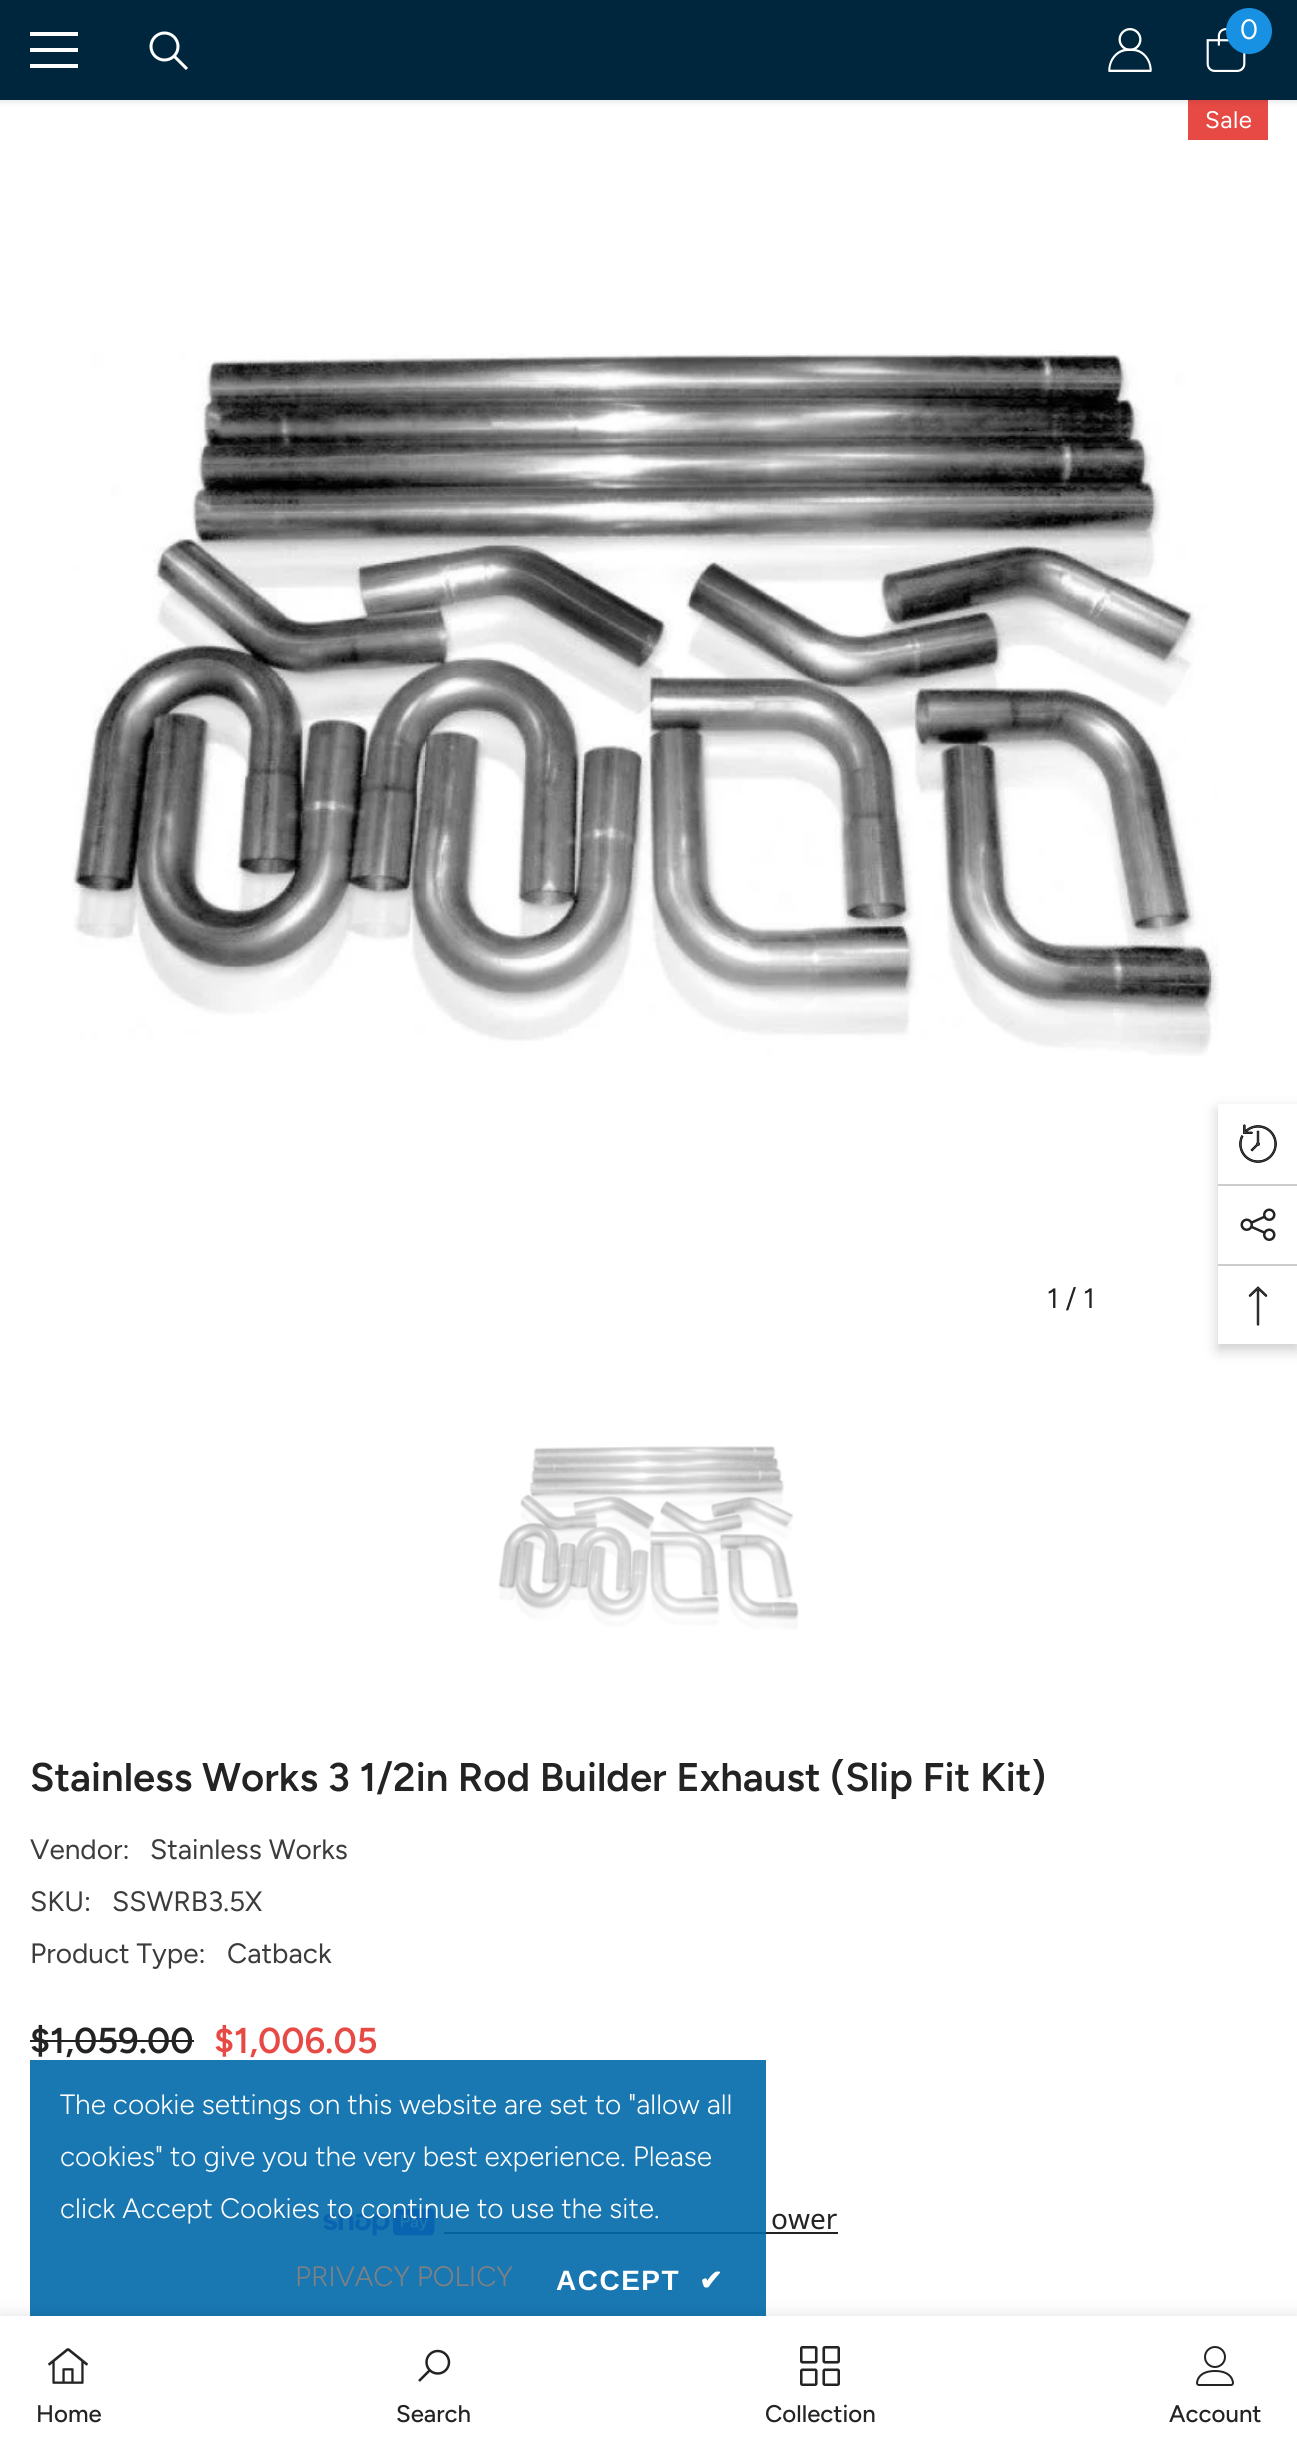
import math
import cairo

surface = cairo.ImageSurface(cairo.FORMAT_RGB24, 1297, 2448)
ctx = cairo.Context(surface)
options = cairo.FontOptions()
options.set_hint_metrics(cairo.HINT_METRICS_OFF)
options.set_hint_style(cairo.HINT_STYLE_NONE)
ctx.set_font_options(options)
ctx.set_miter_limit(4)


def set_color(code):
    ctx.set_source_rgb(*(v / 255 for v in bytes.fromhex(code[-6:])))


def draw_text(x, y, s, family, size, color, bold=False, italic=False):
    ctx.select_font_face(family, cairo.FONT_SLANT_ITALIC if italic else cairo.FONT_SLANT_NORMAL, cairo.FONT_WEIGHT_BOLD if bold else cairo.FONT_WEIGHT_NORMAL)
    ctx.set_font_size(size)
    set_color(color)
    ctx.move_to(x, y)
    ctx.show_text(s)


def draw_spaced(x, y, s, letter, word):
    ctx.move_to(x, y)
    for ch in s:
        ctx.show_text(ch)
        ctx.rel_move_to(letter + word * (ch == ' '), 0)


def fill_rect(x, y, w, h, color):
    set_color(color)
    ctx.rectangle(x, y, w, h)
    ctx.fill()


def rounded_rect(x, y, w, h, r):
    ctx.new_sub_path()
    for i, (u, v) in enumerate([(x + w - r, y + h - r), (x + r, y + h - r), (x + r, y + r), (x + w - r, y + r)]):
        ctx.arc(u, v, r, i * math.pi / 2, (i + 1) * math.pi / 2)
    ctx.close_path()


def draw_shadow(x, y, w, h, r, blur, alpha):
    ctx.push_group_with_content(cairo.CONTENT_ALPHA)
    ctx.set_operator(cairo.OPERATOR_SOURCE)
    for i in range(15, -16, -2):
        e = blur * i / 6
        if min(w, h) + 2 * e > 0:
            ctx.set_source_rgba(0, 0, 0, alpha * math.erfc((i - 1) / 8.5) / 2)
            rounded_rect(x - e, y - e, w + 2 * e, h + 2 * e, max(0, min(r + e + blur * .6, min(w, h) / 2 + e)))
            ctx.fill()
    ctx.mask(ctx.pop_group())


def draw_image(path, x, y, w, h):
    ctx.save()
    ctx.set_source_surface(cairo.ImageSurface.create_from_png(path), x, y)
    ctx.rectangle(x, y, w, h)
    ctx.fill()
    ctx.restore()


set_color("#ffffff")
ctx.paint()
fill_rect(1188, 100, 80, 40, "#e74a45")
set_color("#000000")
draw_shadow(0, 2, 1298, 100, 0, 3, 0.1)
fill_rect(0, 0, 1297, 100, "#00263d")
fill_rect(30, 48, 48, 4, "#ffffff")
fill_rect(30, 32, 48, 4, "#ffffff")
fill_rect(30, 64, 48, 4, "#ffffff")
draw_image("assets/img1.png", 149, 31, 39, 39)
draw_image("assets/img2.png", 1108, 28, 44, 44)
draw_image("assets/img3.png", 1206, 28, 40, 44)
set_color("#1991e2")
ctx.arc(1249, 31, 23, 0, 2 * math.pi)
ctx.fill()
draw_text(1240, 39, "0", "Figtree", 28, "#ffffff")
ctx.set_font_size(24)
draw_spaced(1205, 128, "Sale", 0.5, 0)
draw_image("assets/img4.png", 71, 351, 1148, 705)
draw_text(1047, 1308, "1 / 1", "Figtree", 28, "#232323")
draw_image("assets/img5.png", 498, 1446, 301, 184)
draw_text(30, 1791, "Stainless Works 3 1/2in Rod Builder Exhaust (Slip Fit Kit)", "Figtree SemiBold", 40, "#232323")
draw_text(30, 1859, "Vendor:", "Figtree", 28, "#3c3c3c")
draw_text(150, 1859, "Stainless Works", "Figtree", 28, "#3c3c3c")
draw_text(30, 1911, "SKU:", "Figtree", 28, "#3c3c3c")
draw_text(112, 1911, "SSWRB3.5X", "Figtree", 28, "#3c3c3c")
draw_text(30, 1963, "Product Type:", "Figtree", 28, "#3c3c3c")
draw_text(227, 1963, "Catback", "Figtree", 28, "#3c3c3c")
draw_text(30, 2053, "$1,059.00", "Figtree SemiBold", 36, "#232323")
fill_rect(30, 2040, 164, 2, "#232323")
draw_text(214, 2053, "$1,006.05", "Figtree SemiBold", 36, "#e74a45")
draw_image("assets/img6.png", 323, 2208, 112, 28)
draw_text(771, 2229, "ower", "Noto Sans", 28, "#232323")
fill_rect(444, 2232, 394, 2, "#232323")
ctx.set_source_rgba(0, 0.412, 0.667, 0.9)
ctx.rectangle(30, 2060, 736, 256)
ctx.fill()
set_color("#000000")
draw_shadow(0, 2316, 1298, 132, 0, 9, 0.12)
fill_rect(0, 2316, 1297, 132, "#ffffff")
draw_image("assets/img7.png", 48, 2348, 40, 36)
draw_text(36, 2422, "Home", "Figtree Medium", 24, "#232323")
draw_image("assets/img8.png", 418, 2349, 33, 33)
draw_text(396, 2422, "Search", "Figtree Medium", 24, "#232323")
draw_image("assets/img9.png", 800, 2346, 40, 40)
draw_text(765, 2422, "Collection", "Figtree Medium", 24, "#232323")
draw_image("assets/img10.png", 1196, 2346, 38, 40)
draw_text(1169, 2422, "Account", "Figtree Medium", 24, "#232323")
ctx.save()
ctx.set_fill_rule(cairo.FILL_RULE_EVEN_ODD)
ctx.new_path()
ctx.move_to(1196, 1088)
ctx.line_to(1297, 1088)
ctx.line_to(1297, 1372)
ctx.line_to(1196, 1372)
ctx.close_path()
ctx.move_to(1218, 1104)
ctx.line_to(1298, 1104)
ctx.line_to(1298, 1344)
ctx.line_to(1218, 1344)
ctx.close_path()
ctx.clip()
set_color("#000000")
draw_shadow(1218, 1110, 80, 240, 0, 7, 0.2)
ctx.restore()
draw_image("assets/img11.png", 1239, 1124, 38, 39)
fill_rect(1218, 1184, 79, 2, "#cccccc")
draw_image("assets/img12.png", 1240, 1208, 36, 33)
fill_rect(1218, 1264, 79, 2, "#cccccc")
draw_image("assets/img13.png", 1248, 1286, 20, 40)
draw_text(60, 2114, "The cookie settings on this website are set to \"allow all", "Figtree Light", 28, "#ffffff")
draw_text(60, 2166, "cookies\" to give you the very best experience. Please", "Figtree Light", 28, "#ffffff")
draw_text(60, 2218, "click Accept Cookies to continue to use the site.", "Figtree Light", 28, "#ffffff")
draw_text(295, 2286, "PRIVACY POLICY", "Figtree Light", 28, "#818181")
ctx.select_font_face("Liberation Sans", cairo.FONT_SLANT_NORMAL, cairo.FONT_WEIGHT_BOLD)
set_color("#ffffff")
draw_spaced(556, 2290, "ACCEPT", 1.5, 0)
ctx.select_font_face("DejaVu Sans", cairo.FONT_SLANT_NORMAL, cairo.FONT_WEIGHT_BOLD)
draw_spaced(699, 2290, "✔", 1.5, 0)
surface.write_to_png("output.png")
